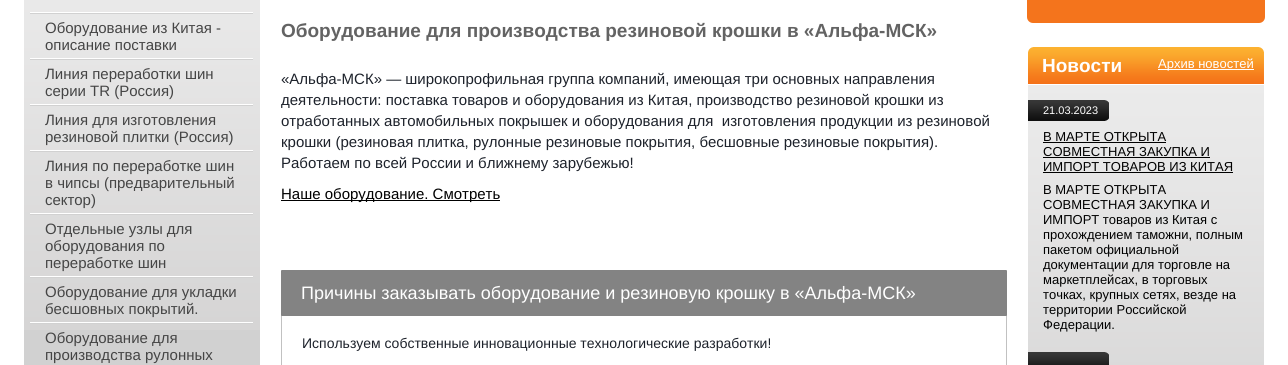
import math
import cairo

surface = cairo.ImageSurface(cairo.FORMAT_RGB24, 1288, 365)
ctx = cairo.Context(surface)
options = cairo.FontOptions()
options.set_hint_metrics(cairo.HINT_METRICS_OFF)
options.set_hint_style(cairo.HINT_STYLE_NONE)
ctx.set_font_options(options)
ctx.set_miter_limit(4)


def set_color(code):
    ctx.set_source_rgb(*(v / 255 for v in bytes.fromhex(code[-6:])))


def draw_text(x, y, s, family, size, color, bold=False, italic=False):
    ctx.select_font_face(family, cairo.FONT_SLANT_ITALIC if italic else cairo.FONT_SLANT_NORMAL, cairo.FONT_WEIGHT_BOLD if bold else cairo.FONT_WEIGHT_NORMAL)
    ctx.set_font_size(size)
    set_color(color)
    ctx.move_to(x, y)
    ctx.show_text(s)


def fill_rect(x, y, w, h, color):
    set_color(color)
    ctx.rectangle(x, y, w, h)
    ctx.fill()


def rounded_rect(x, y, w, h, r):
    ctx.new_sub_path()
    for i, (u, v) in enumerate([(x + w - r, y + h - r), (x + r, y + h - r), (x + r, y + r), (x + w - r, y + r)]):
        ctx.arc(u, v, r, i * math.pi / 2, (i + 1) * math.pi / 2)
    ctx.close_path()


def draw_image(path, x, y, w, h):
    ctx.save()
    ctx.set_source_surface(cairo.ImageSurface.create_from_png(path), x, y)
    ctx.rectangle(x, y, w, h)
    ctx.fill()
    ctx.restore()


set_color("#ffffff")
ctx.paint()
fill_rect(24, 330, 236, 35, "#d1d1d1")
draw_image("assets/img1.png", 24, 0, 236, 330)
draw_image("assets/img2.png", 30, 12, 223, 2)
draw_text(45, 33, "Оборудование из Китая -", "Liberation Sans", 15, "#454545")
draw_text(45, 50, "описание поставки", "Liberation Sans", 15, "#454545")
draw_image("assets/img2.png", 30, 58, 223, 2)
draw_text(45, 79, "Линия переработки шин", "Liberation Sans", 15, "#454545")
draw_text(45, 96, "серии TR (Россия)", "Liberation Sans", 15, "#454545")
draw_image("assets/img2.png", 30, 104, 223, 2)
draw_text(45, 125, "Линия для изготовления", "Liberation Sans", 15, "#454545")
draw_text(45, 142, "резиновой плитки (Россия)", "Liberation Sans", 15, "#454545")
draw_image("assets/img2.png", 30, 150, 223, 2)
draw_text(45, 171, "Линия по переработке шин", "Liberation Sans", 15, "#454545")
draw_text(45, 188, "в чипсы (предварительный", "Liberation Sans", 15, "#454545")
draw_text(45, 205, "сектор)", "Liberation Sans", 15, "#454545")
draw_image("assets/img2.png", 30, 213, 223, 2)
draw_text(45, 234, "Отдельные узлы для", "Liberation Sans", 15, "#454545")
draw_text(45, 251, "оборудования по", "Liberation Sans", 15, "#454545")
draw_text(45, 268, "переработке шин", "Liberation Sans", 15, "#454545")
draw_image("assets/img2.png", 30, 276, 223, 2)
draw_text(45, 297, "Оборудование для укладки", "Liberation Sans", 15, "#454545")
draw_text(45, 314, "бесшовных покрытий.", "Liberation Sans", 15, "#454545")
draw_image("assets/img2.png", 30, 322, 223, 2)
draw_text(45, 343, "Оборудование для", "Liberation Sans", 15, "#454545")
draw_text(45, 360, "производства рулонных", "Liberation Sans", 15, "#454545")
draw_text(281, 37, "Оборудование для производства резиновой крошки в «Альфа-МСК»", "Liberation Sans", 19, "#636363", bold=True)
draw_text(281, 84, "«Альфа-МСК» — широкопрофильная группа компаний, имеющая три основных направления", "Liberation Sans", 15, "#1d222b")
draw_text(281, 105, "деятельности: поставка товаров и оборудования из Китая, производство резиновой крошки из", "Liberation Sans", 15, "#1d222b")
draw_text(281, 126, "отработанных автомобильных покрышек и оборудования для  изготовления продукции из резиновой", "Liberation Sans", 15, "#1d222b")
draw_text(281, 147, "крошки (резиновая плитка, рулонные резиновые покрытия, бесшовные резиновые покрытия).", "Liberation Sans", 15, "#1d222b")
draw_text(281, 168, "Работаем по всей России и ближнему зарубежью!", "Liberation Sans", 15, "#1d222b")
fill_rect(281, 200, 219, 1, "#000000")
draw_text(281, 199, "Наше оборудование. Смотреть", "Liberation Sans", 15, "#000000")
set_color("#c1c1c1")
ctx.new_path()
ctx.move_to(1007, 313)
ctx.line_to(1006, 314)
ctx.line_to(1006, 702)
ctx.line_to(1005, 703)
ctx.line_to(1006, 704)
ctx.line_to(1007, 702)
ctx.close_path()
ctx.fill()
ctx.new_path()
ctx.move_to(282, 314)
ctx.line_to(281, 313)
ctx.line_to(281, 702)
ctx.line_to(282, 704)
ctx.line_to(283, 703)
ctx.line_to(282, 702)
ctx.close_path()
ctx.fill()
set_color("#838383")
rounded_rect(281, 270, 726, 46, 1)
ctx.fill()
draw_text(301, 299, "Причины заказывать оборудование и резиновую крошку в «Альфа-МСК»", "Liberation Sans", 18, "#ffffff")
draw_text(302, 348, "Используем собственные инновационные технологические разработки!", "Liberation Sans", 14, "#1d222b")
set_color("#f4741c")
rounded_rect(1027, -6, 238, 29, 6)
ctx.fill()
draw_image("assets/img3.png", 1028, 47, 236, 37)
draw_text(1042, 72, "Новости", "Liberation Sans", 19, "#ffffff", bold=True)
fill_rect(1158, 69, 96, 1, "#ffffff")
draw_text(1158, 68, "Архив новостей", "Liberation Sans", 13, "#ffffff")
draw_image("assets/img4.png", 1028, 85, 236, 280)
draw_image("assets/img5.png", 1028, 100, 81, 21)
draw_text(1043, 114, "21.03.2023", "Liberation Sans", 11, "#ffffff")
draw_text(1043, 141, "В МАРТЕ ОТКРЫТА", "Liberation Sans", 13, "#000000")
fill_rect(1043, 142, 123, 1, "#000000")
draw_text(1043, 156, "СОВМЕСТНАЯ ЗАКУПКА И", "Liberation Sans", 13, "#000000")
fill_rect(1043, 157, 167, 1, "#000000")
draw_text(1043, 171, "ИМПОРТ ТОВАРОВ ИЗ КИТАЯ", "Liberation Sans", 13, "#000000")
fill_rect(1043, 172, 190, 1, "#000000")
draw_text(1043, 194, "В МАРТЕ ОТКРЫТА", "Liberation Sans", 13, "#000000")
draw_text(1043, 209, "СОВМЕСТНАЯ ЗАКУПКА И", "Liberation Sans", 13, "#000000")
draw_text(1043, 224, "ИМПОРТ товаров из Китая с", "Liberation Sans", 13, "#000000")
draw_text(1043, 239, "прохождением таможни, полным", "Liberation Sans", 13, "#000000")
draw_text(1043, 254, "пакетом официальной", "Liberation Sans", 13, "#000000")
draw_text(1043, 269, "документации для торговле на", "Liberation Sans", 13, "#000000")
draw_text(1043, 284, "маркетплейсах, в торговых", "Liberation Sans", 13, "#000000")
draw_text(1043, 299, "точках, крупных сетях, везде на", "Liberation Sans", 13, "#000000")
draw_text(1043, 314, "территории Российской", "Liberation Sans", 13, "#000000")
draw_text(1043, 329, "Федерации.", "Liberation Sans", 13, "#000000")
draw_image("assets/img6.png", 1028, 352, 81, 13)
surface.write_to_png("output.png")
